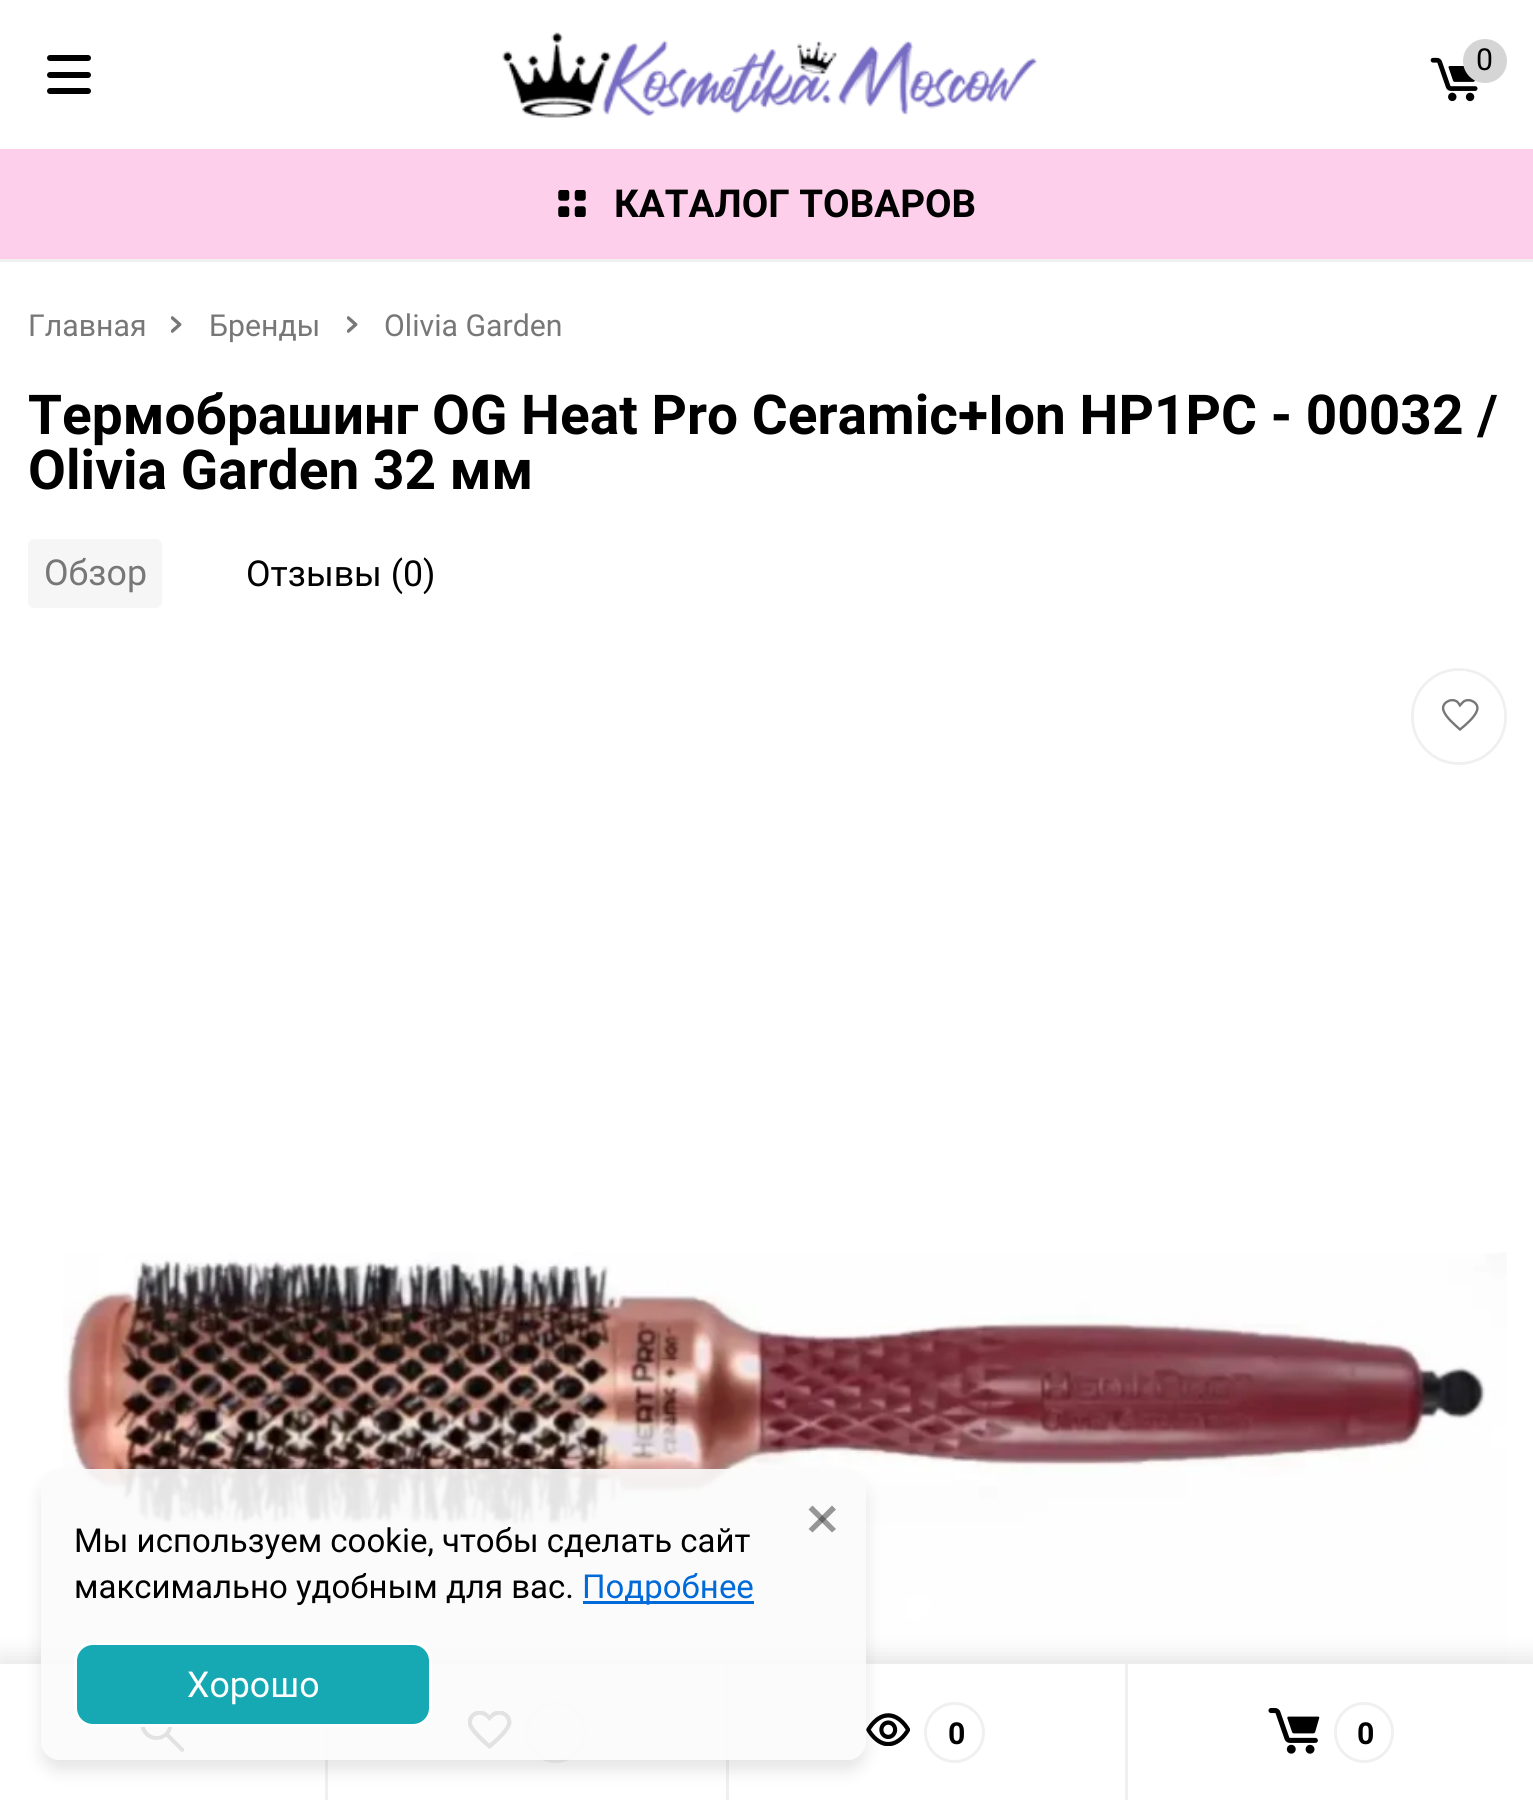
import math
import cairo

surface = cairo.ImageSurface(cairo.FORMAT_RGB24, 1533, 1800)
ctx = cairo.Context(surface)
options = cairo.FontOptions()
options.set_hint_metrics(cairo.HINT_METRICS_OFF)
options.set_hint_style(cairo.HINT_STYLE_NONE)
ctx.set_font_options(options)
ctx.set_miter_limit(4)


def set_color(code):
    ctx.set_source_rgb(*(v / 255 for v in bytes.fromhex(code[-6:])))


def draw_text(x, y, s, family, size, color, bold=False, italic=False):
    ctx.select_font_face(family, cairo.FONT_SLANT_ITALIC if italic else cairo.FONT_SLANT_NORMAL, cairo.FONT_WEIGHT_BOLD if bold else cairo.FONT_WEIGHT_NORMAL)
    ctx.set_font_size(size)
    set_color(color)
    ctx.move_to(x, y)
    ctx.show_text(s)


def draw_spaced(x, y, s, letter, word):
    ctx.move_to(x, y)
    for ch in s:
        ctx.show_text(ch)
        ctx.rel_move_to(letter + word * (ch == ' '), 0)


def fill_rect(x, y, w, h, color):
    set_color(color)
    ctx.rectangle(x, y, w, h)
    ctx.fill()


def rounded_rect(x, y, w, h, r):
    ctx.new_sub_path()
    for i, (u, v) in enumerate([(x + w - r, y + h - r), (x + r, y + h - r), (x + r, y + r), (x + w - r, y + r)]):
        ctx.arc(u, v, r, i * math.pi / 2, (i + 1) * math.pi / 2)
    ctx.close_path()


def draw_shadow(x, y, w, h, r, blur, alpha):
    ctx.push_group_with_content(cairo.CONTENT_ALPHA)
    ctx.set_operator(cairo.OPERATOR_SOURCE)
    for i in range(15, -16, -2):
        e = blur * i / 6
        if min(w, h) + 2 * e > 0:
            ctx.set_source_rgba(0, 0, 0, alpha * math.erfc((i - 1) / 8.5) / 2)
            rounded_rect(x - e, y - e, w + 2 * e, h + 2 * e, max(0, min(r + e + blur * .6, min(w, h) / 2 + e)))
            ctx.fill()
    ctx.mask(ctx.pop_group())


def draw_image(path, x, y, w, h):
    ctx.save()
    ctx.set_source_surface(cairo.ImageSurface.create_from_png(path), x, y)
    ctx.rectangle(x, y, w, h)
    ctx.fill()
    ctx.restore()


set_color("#ffffff")
ctx.paint()
fill_rect(0, 259, 1533, 3, "#f0f0f0")
set_color("#000000")
rounded_rect(47, 72, 44, 6, 3)
ctx.fill()
rounded_rect(47, 55, 44, 6, 3)
ctx.fill()
rounded_rect(47, 88, 44, 6, 3)
ctx.fill()
draw_image("assets/img1.png", 502, 32, 535, 86)
draw_image("assets/img2.png", 1430, 57, 48, 45)
set_color("#d5d5d5")
ctx.arc(1485, 61, 22, 0, 2 * math.pi)
ctx.fill()
draw_text(1476, 70, "0", "Roboto", 30.25, "#000000")
fill_rect(0, 149, 1533, 110, "#fdcfeb")
draw_image("assets/img3.png", 558, 190, 28, 27)
draw_text(614, 217, "КАТАЛОГ ТОВАРОВ", "Roboto", 38.5, "#000000", bold=True)
draw_text(28, 336, "Главная", "Roboto", 30.25, "#777777")
draw_image("assets/img4.png", 171, 316, 11, 17)
draw_text(209, 336, "Бренды", "Roboto", 30.25, "#777777")
draw_image("assets/img4.png", 347, 316, 11, 17)
draw_text(384, 336, "Olivia Garden", "Roboto", 30.25, "#777777")
draw_text(28, 434, "Термобрашинг OG Heat Pro Ceramic+Ion HP1PC - 00032 /", "Roboto", 55, "#000000", bold=True)
draw_text(28, 489, "Olivia Garden 32 мм", "Roboto", 55, "#000000", bold=True)
set_color("#f6f6f6")
rounded_rect(28, 539, 134, 69, 6)
ctx.fill()
draw_text(44, 585, "Обзор", "Roboto", 35.75, "#777777")
draw_text(246, 586, "Отзывы (0)", "Roboto", 35.75, "#000000")
rounded_rect(1412.5, 669.5, 93, 94, 46.5)
set_color("#f0f0f0")
ctx.set_line_width(3)
ctx.stroke()
set_color("#ffffff")
rounded_rect(1414, 671, 90, 91, 45)
ctx.fill()
ctx.new_path()
ctx.move_to(1460, 729.5)
ctx.curve_to(1465.5, 725, 1475, 717, 1477, 710.5)
ctx.curve_to(1479.5, 703.5, 1470.5, 698, 1464.5, 701)
ctx.curve_to(1462.5, 702, 1461.5, 704, 1460, 705.5)
ctx.curve_to(1459, 704, 1458, 702, 1456, 701)
ctx.curve_to(1450, 698, 1441, 703.5, 1443.5, 710.5)
ctx.curve_to(1445.5, 717, 1455, 725, 1460, 729.5)
ctx.close_path()
set_color("#777777")
ctx.set_line_width(2.4)
ctx.stroke()
draw_image("assets/img5.png", 63, 1252, 1444, 412)
set_color("#000000")
draw_shadow(0, 1658, 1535, 138, 0, 12.5, 0.11)
fill_rect(0, 1664, 1533, 136, "#ffffff")
fill_rect(325, 1727, 3, 73, "#f0f0f0")
draw_image("assets/img6.png", 140, 1727, 44, 25)
fill_rect(726, 1664, 3, 136, "#f0f0f0")
draw_image("assets/img7.png", 468, 1711, 44, 38)
ctx.arc(555.5, 1732.5, 29, 0, 2 * math.pi)
ctx.set_line_width(3)
ctx.stroke()
fill_rect(1125, 1664, 3, 136, "#f0f0f0")
draw_image("assets/img8.png", 866, 1713, 44, 33)
ctx.arc(954.5, 1732.5, 29, 0, 2 * math.pi)
ctx.stroke()
ctx.select_font_face("Roboto", cairo.FONT_SLANT_NORMAL, cairo.FONT_WEIGHT_BOLD)
ctx.set_font_size(30.25)
set_color("#000000")
draw_spaced(948, 1744, "0", -3, 0)
draw_image("assets/img9.png", 1268, 1708, 52, 46)
rounded_rect(1335.5, 1703.5, 57, 58, 28.5)
set_color("#f0f0f0")
ctx.stroke()
set_color("#000000")
draw_spaced(1357, 1744, "0", -3, 0)
ctx.save()
ctx.set_fill_rule(cairo.FILL_RULE_EVEN_ODD)
ctx.new_path()
ctx.move_to(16, 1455)
ctx.line_to(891, 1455)
ctx.line_to(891, 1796)
ctx.line_to(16, 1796)
ctx.close_path()
ctx.move_to(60, 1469)
ctx.line_to(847, 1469)
ctx.curve_to(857.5, 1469, 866, 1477.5, 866, 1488)
ctx.line_to(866, 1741)
ctx.curve_to(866, 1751.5, 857.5, 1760, 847, 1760)
ctx.line_to(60, 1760)
ctx.curve_to(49.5, 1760, 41, 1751.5, 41, 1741)
ctx.line_to(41, 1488)
ctx.curve_to(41, 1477.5, 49.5, 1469, 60, 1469)
ctx.close_path()
ctx.clip()
set_color("#000000")
draw_shadow(41, 1480, 825, 291, 19, 8, 0.1)
ctx.restore()
ctx.set_source_rgba(0.984, 0.984, 0.984, 0.9)
rounded_rect(41, 1469, 825, 291, 19)
ctx.fill()
set_color("#979797")
ctx.new_path()
ctx.move_to(812.5, 1505.5)
ctx.line_to(836, 1529)
ctx.line_to(832, 1532.5)
ctx.line_to(808.5, 1509.5)
ctx.close_path()
ctx.fill()
ctx.set_source_rgba(0.2, 0.2, 0.2, 0.5)
ctx.new_path()
ctx.move_to(808.5, 1529)
ctx.line_to(832, 1505.5)
ctx.line_to(836, 1509.5)
ctx.line_to(812.5, 1532.5)
ctx.close_path()
ctx.fill()
draw_text(74, 1552, "Мы используем cookie, чтобы сделать сайт", "Roboto", 33, "#000000")
draw_text(74, 1598, "максимально удобным для вас.", "Roboto", 33, "#000000")
fill_rect(583, 1601, 171, 3, "#006bd8")
draw_text(582, 1598, "Подробнее", "Roboto", 33, "#006bd8")
set_color("#16a9b3")
rounded_rect(75.5, 1643.5, 355, 82, 17.5)
ctx.fill_preserve()
set_color("#ffffff")
ctx.stroke()
draw_text(187, 1697, "Хорошо", "Roboto", 35.75, "#ffffff")
surface.write_to_png("output.png")
